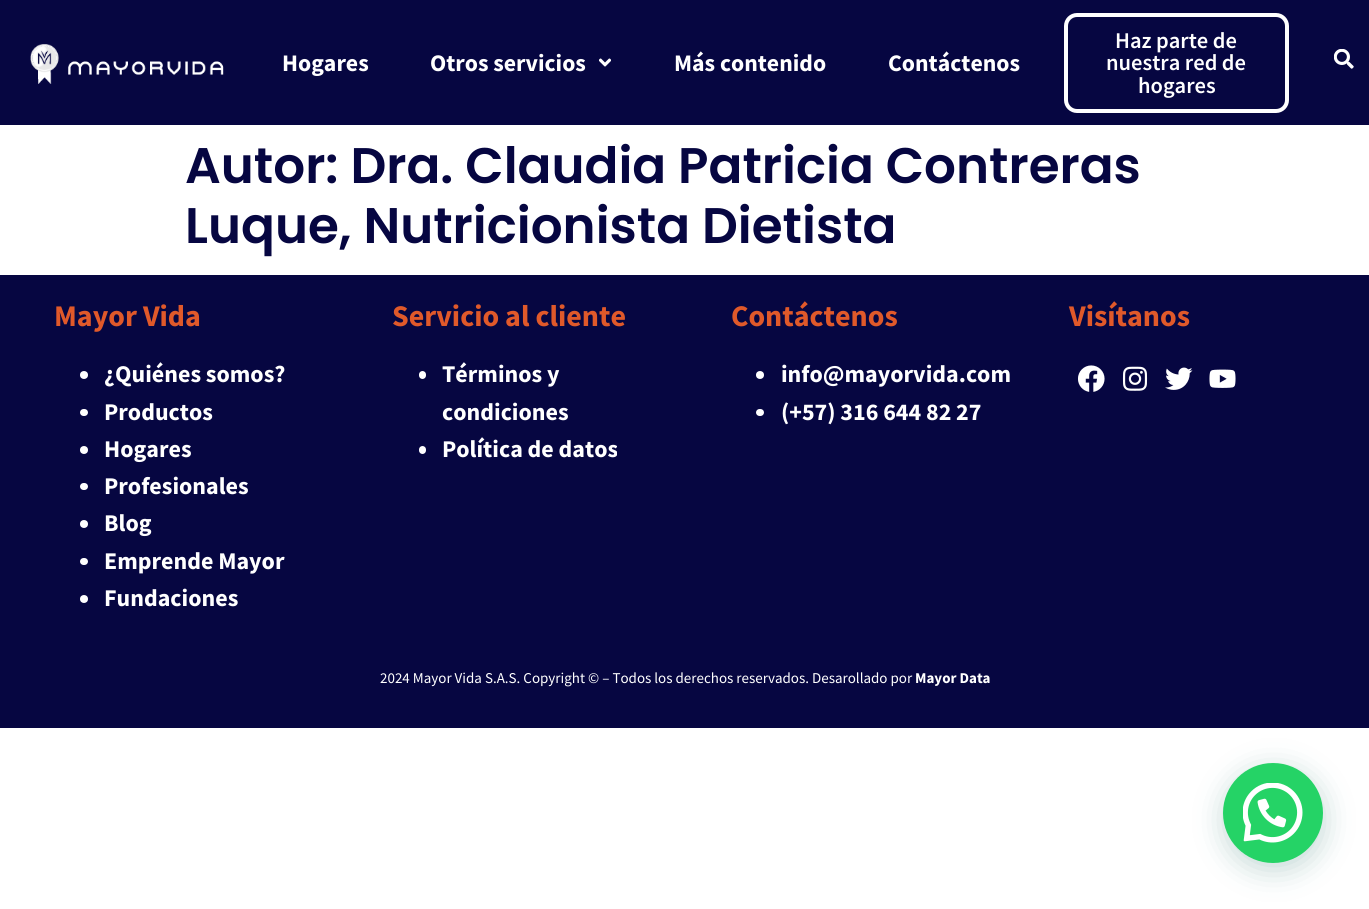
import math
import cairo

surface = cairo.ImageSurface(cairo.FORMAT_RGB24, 1369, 909)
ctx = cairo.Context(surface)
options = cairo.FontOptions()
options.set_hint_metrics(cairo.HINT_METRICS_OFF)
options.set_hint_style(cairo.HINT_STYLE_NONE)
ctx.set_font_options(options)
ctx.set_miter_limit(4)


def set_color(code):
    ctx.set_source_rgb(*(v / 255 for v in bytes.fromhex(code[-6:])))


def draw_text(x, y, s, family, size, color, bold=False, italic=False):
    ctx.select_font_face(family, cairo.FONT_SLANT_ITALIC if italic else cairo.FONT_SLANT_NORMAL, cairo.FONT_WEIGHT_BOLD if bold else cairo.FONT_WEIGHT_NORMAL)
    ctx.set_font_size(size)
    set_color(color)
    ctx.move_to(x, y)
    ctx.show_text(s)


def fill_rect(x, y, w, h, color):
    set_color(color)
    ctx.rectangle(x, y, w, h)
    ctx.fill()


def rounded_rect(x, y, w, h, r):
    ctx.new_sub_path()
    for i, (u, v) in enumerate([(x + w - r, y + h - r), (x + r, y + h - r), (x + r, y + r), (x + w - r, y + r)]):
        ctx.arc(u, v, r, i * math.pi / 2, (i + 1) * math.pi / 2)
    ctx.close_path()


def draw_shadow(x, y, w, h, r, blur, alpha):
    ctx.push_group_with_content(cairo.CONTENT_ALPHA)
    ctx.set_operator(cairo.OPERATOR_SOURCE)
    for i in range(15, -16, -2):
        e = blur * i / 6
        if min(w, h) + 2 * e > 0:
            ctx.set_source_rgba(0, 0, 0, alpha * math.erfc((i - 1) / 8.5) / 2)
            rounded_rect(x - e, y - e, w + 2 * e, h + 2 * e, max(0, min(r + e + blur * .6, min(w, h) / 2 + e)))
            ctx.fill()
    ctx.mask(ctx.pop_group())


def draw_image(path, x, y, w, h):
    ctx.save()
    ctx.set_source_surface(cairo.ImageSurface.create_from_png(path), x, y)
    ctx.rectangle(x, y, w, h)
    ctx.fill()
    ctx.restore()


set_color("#ffffff")
ctx.paint()
gradient = cairo.LinearGradient(371, 436, 999, -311)
gradient.add_color_stop_rgba(0.5, 1, 1, 1, 1)
gradient.add_color_stop_rgba(0.5, 0.024, 0.024, 0.255, 1)
ctx.set_source(gradient)
ctx.rectangle(1051, 0, 318, 125)
ctx.fill()
fill_rect(0, 0, 1051, 125, "#060641")
draw_image("assets/img1.png", 30, 44, 194, 40)
rounded_rect(1066, 15, 221, 96, 11)
set_color("#ffffff")
ctx.set_line_width(4)
ctx.stroke()
draw_text(1115, 48, "Haz parte de", "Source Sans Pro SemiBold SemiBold", 22.5, "#ffffff")
draw_text(1106, 70, "nuestra red de", "Source Sans Pro SemiBold SemiBold", 22.5, "#ffffff")
draw_text(1138, 93, "hogares", "Source Sans Pro SemiBold SemiBold", 22.5, "#ffffff")
draw_image("assets/img2.png", 1334, 49, 20, 20)
draw_text(282, 71, "Hogares", "Source Sans Pro", 23.75, "#ffffff", bold=True)
draw_text(430, 71, "Otros servicios", "Source Sans Pro", 23.75, "#ffffff", bold=True)
draw_image("assets/img3.png", 599, 58, 12, 9)
draw_text(674, 71, "Más contenido", "Source Sans Pro", 23.75, "#ffffff", bold=True)
draw_text(888, 71, "Contáctenos", "Source Sans Pro", 23.75, "#ffffff", bold=True)
draw_text(185, 183, "Autor: Dra. Claudia Patricia Contreras", "Poppins SemiBold", 50, "#060641")
draw_text(185, 243, "Luque, Nutricionista Dietista", "Poppins SemiBold", 50, "#060641")
fill_rect(0, 275, 1369, 453, "#060641")
draw_text(54, 326, "Mayor Vida", "Source Sans Pro", 30, "#e0592a", bold=True)
set_color("#ffffff")
ctx.new_path()
ctx.arc(84, 375, 4, 0, 2 * math.pi)
ctx.fill()
draw_text(104, 382, "¿Quiénes somos?", "Source Sans Pro", 24, "#ffffff", bold=True)
rounded_rect(80, 409, 8, 7, 3.5)
ctx.fill()
draw_text(104, 420, "Productos", "Source Sans Pro", 24, "#ffffff", bold=True)
ctx.new_path()
ctx.arc(84, 450, 4, 0, 2 * math.pi)
ctx.fill()
draw_text(104, 457, "Hogares", "Source Sans Pro", 24, "#ffffff", bold=True)
rounded_rect(80, 483, 8, 7, 3.5)
ctx.fill()
draw_text(104, 494, "Profesionales", "Source Sans Pro", 24, "#ffffff", bold=True)
ctx.new_path()
ctx.arc(84, 524, 4, 0, 2 * math.pi)
ctx.fill()
draw_text(104, 531, "Blog", "Source Sans Pro", 24, "#ffffff", bold=True)
rounded_rect(80, 558, 8, 7, 3.5)
ctx.fill()
draw_text(104, 569, "Emprende Mayor", "Source Sans Pro", 24, "#ffffff", bold=True)
ctx.new_path()
ctx.arc(84, 599, 4, 0, 2 * math.pi)
ctx.fill()
draw_text(104, 606, "Fundaciones", "Source Sans Pro", 24, "#ffffff", bold=True)
draw_text(392, 326, "Servicio al cliente", "Source Sans Pro", 30, "#e0592a", bold=True)
set_color("#ffffff")
rounded_rect(419, 371, 7, 8, 3.5)
ctx.fill()
draw_text(442, 382, "Términos y", "Source Sans Pro", 24, "#ffffff", bold=True)
draw_text(442, 420, "condiciones", "Source Sans Pro", 24, "#ffffff", bold=True)
rounded_rect(419, 446, 7, 8, 3.5)
ctx.fill()
draw_text(442, 457, "Política de datos", "Source Sans Pro", 24, "#ffffff", bold=True)
draw_text(731, 326, "Contáctenos", "Source Sans Pro", 30, "#e0592a", bold=True)
set_color("#ffffff")
ctx.new_path()
ctx.arc(760, 375, 4, 0, 2 * math.pi)
ctx.fill()
draw_text(781, 382, "info@mayorvida.com", "Source Sans Pro", 24, "#ffffff", bold=True)
rounded_rect(756, 409, 8, 7, 3.5)
ctx.fill()
draw_text(781, 420, "(+57) 316 644 82 27", "Source Sans Pro", 24, "#ffffff", bold=True)
draw_text(1069, 326, "Visítanos", "Source Sans Pro", 30, "#e0592a", bold=True)
draw_image("assets/img4.png", 1078, 365, 27, 27)
draw_image("assets/img5.png", 1122, 366, 26, 25)
draw_image("assets/img6.png", 1165, 367, 28, 23)
draw_image("assets/img7.png", 1209, 369, 27, 19)
draw_text(380, 683, "2024 Mayor Vida S.A.S. Copyright © – Todos los derechos reservados. Desarollado por", "Source Sans Pro", 15, "#ffffff")
draw_text(915, 683, "Mayor Data", "Source Sans Pro", 15, "#ffffff", bold=True)
set_color("#075e54")
draw_shadow(1224, 770, 100, 100, 50, 15, 0.24)
set_color("#25d366")
ctx.arc(1273, 813, 50, 0, 2 * math.pi)
ctx.fill()
draw_image("assets/img8.png", 1243, 783, 60, 60)
surface.write_to_png("output.png")
